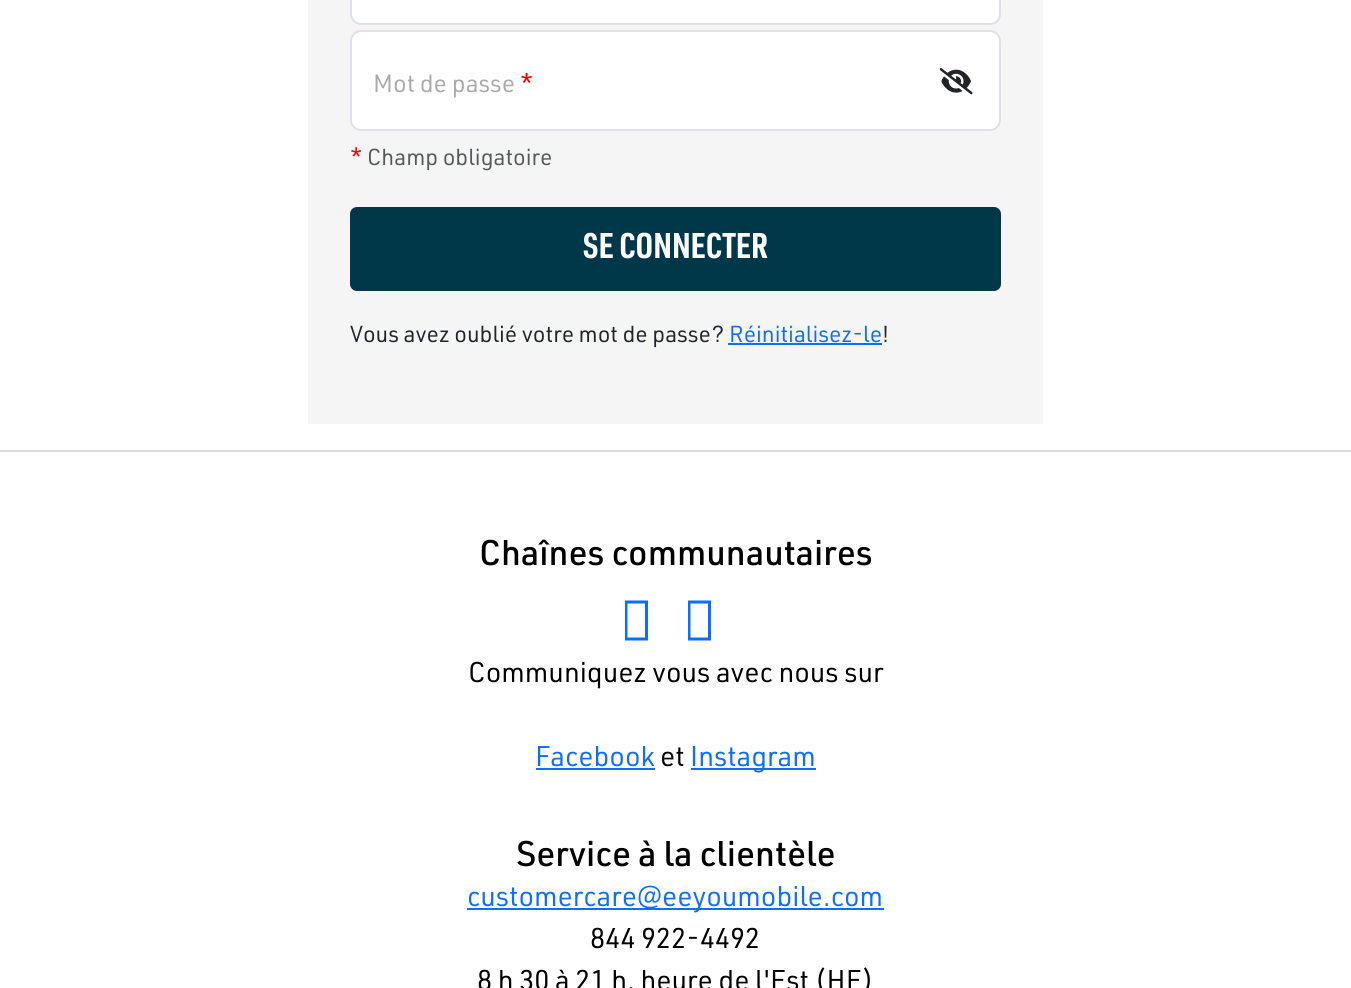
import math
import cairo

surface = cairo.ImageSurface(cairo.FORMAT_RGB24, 1351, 988)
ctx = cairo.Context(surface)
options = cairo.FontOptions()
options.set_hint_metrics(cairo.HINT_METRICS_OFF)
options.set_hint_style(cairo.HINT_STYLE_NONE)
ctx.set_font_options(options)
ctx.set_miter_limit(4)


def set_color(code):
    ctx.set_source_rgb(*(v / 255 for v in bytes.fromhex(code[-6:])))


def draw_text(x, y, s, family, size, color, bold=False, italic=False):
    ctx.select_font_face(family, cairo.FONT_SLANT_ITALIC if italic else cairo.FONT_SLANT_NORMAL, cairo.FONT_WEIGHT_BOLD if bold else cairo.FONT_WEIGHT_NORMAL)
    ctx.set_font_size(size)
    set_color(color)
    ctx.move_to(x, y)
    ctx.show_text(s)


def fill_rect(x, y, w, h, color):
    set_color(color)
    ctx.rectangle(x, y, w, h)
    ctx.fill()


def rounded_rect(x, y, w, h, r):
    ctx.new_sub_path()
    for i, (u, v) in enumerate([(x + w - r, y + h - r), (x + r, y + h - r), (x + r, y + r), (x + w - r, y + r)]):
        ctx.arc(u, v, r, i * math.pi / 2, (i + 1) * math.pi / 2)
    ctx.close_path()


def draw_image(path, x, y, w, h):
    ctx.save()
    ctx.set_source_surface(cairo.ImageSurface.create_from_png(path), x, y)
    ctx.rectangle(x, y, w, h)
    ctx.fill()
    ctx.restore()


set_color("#ffffff")
ctx.paint()
fill_rect(308, 0, 735, 424, "#f5f5f5")
set_color("#ffffff")
rounded_rect(352, -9, 647, 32, 9)
ctx.fill()
rounded_rect(351, -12, 649, 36, 10)
set_color("#dee2e6")
ctx.stroke()
set_color("#ffffff")
rounded_rect(351, 31, 649, 99, 10)
ctx.fill_preserve()
set_color("#dee2e6")
ctx.stroke()
draw_text(373, 92, "Mot de passe", "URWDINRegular", 24.5, "#aaaaaa")
draw_text(520, 92, "*", "URWDINRegular", 24.5, "#ff0000")
draw_image("assets/img1.png", 939, 68, 34, 27)
draw_text(350, 165, "*", "URWDINRegular", 22.75, "#ff0000")
draw_text(367, 165, "Champ obligatoire", "URWDINRegular", 22.75, "#56595c")
set_color("#003749")
rounded_rect(351, 208, 649, 82, 6)
ctx.fill_preserve()
ctx.stroke()
draw_text(583, 258, "SE CONNECTER", "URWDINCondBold", 35, "#ffffff")
draw_text(350, 342, "Vous avez oublié votre mot de passe?", "URWDINRegular", 22.75, "#212529")
draw_text(729, 342, "Réinitialisez-le", "URWDINRegular", 22.75, "#0d6efd")
fill_rect(728, 343, 154, 2, "#0d6efd")
draw_text(882, 342, "!", "URWDINRegular", 22.75, "#212529")
fill_rect(0, 450, 1351, 2, "#dddddd")
draw_text(479, 565, "Chaînes communautaires", "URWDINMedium", 35, "#000000")
set_color("#0d6efd")
ctx.new_path()
ctx.move_to(625, 640.5)
ctx.line_to(625, 600.5)
ctx.line_to(648, 600.5)
ctx.line_to(648, 640.5)
ctx.close_path()
ctx.move_to(627.5, 637.5)
ctx.line_to(645, 637.5)
ctx.line_to(645, 603.5)
ctx.line_to(627.5, 603.5)
ctx.close_path()
ctx.fill()
ctx.new_path()
ctx.move_to(688, 640.5)
ctx.line_to(688, 600.5)
ctx.line_to(711, 600.5)
ctx.line_to(711, 640.5)
ctx.close_path()
ctx.move_to(690.5, 637.5)
ctx.line_to(708, 637.5)
ctx.line_to(708, 603.5)
ctx.line_to(690.5, 603.5)
ctx.close_path()
ctx.fill()
draw_text(468, 682, "Communiquez vous avec nous sur", "URWDINRegular", 28, "#000000")
draw_text(535, 766, "Facebook", "URWDINRegular", 28, "#0d6efd")
fill_rect(536, 768, 119, 2, "#0d6efd")
draw_text(660, 766, "et", "URWDINRegular", 28, "#000000")
fill_rect(691, 768, 125, 2, "#0d6efd")
draw_text(690, 766, "Instagram", "URWDINRegular", 28, "#0d6efd")
draw_text(516, 866, "Service à la clientèle", "URWDINMedium", 35, "#000000")
fill_rect(467, 908, 417, 2, "#0d6efd")
draw_text(467, 906, "customercare@eeyoumobile.com", "URWDINRegular", 28, "#0d6efd")
draw_text(590, 948, "844 922-4492", "URWDINRegular", 28, "#000000")
draw_text(477, 990, "8 h 30 à 21 h, heure de l'Est (HE)", "URWDINRegular", 28, "#000000")
surface.write_to_png("output.png")
